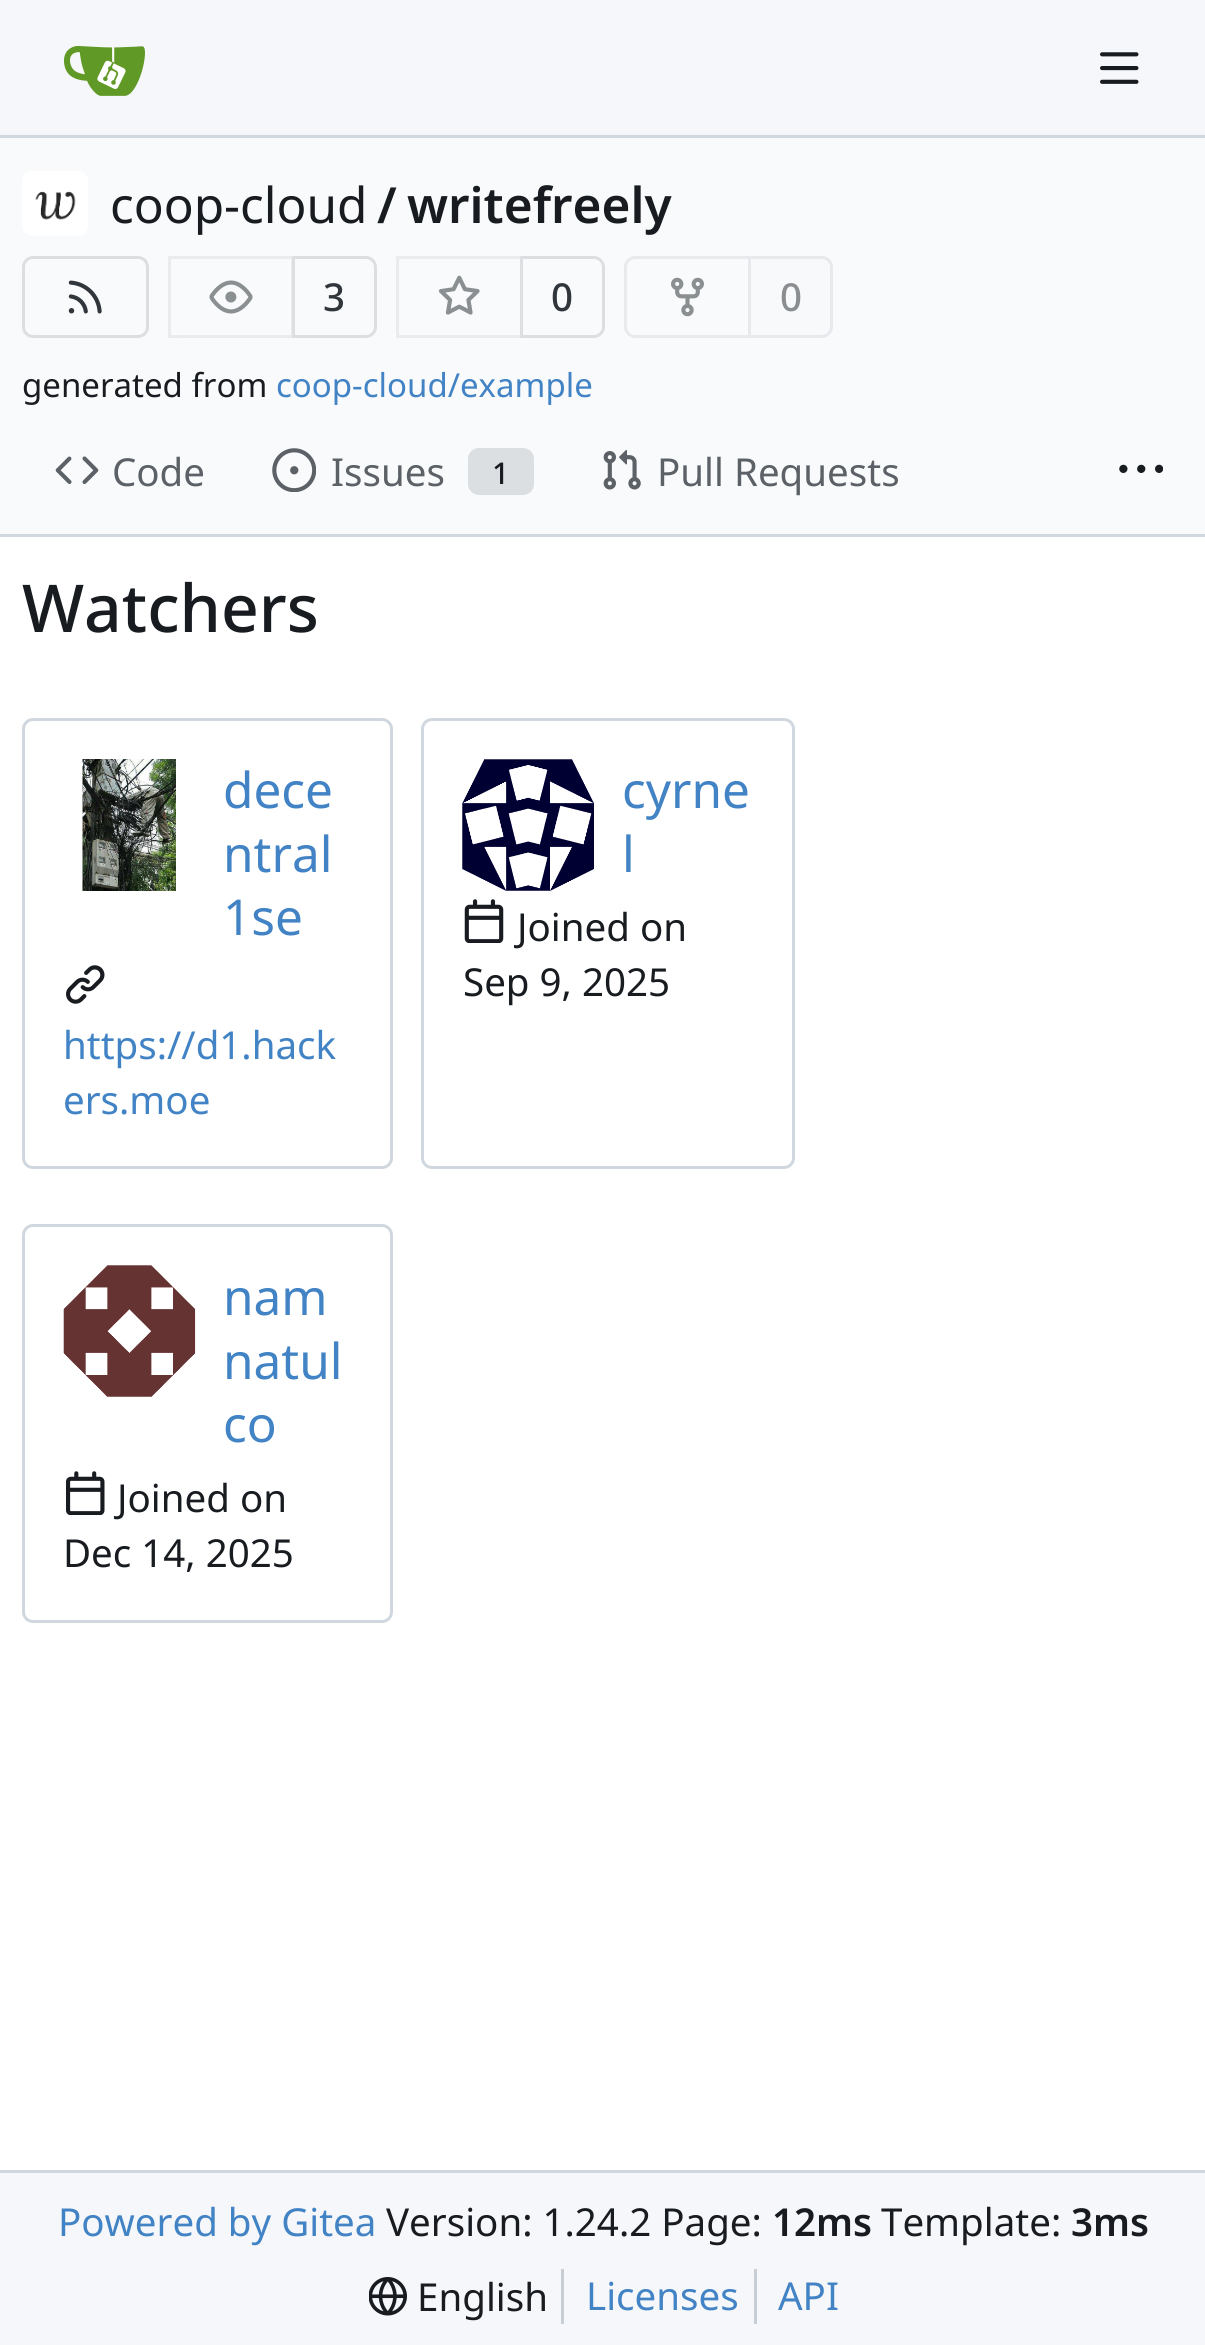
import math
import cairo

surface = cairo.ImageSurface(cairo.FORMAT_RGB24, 1205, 2345)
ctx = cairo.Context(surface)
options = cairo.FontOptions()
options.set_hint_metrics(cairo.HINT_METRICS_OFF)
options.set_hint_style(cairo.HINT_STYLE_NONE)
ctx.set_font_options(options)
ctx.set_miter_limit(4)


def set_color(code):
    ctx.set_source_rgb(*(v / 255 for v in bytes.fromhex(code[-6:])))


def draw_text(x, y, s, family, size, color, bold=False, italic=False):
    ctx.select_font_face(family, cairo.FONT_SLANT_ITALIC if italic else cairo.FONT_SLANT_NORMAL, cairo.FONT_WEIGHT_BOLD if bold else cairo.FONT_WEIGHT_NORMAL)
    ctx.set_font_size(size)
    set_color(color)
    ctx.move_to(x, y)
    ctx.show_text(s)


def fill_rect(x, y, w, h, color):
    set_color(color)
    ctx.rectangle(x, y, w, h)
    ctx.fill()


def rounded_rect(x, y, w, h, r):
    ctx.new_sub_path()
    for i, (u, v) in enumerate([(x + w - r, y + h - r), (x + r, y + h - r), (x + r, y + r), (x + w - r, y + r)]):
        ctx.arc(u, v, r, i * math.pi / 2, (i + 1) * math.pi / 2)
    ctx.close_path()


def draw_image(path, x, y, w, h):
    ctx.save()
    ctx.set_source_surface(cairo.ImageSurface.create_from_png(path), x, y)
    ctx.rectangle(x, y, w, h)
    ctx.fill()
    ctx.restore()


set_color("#ffffff")
ctx.paint()
fill_rect(0, 0, 1205, 135, "#f6f7fa")
fill_rect(0, 135, 1205, 3, "#d0d7de")
draw_image("assets/img1.png", 64, 45, 81, 51)
draw_image("assets/img2.png", 1100, 52, 39, 32)
fill_rect(0, 138, 1205, 396, "#f9fafb")
draw_image("assets/img3.png", 22, 171, 66, 65)
draw_text(110, 223, "coop-cloud", "Noto Sans", 49.5, "#181c21")
draw_text(377, 223, "/", "Noto Sans SemiBold", 49.5, "#181c21")
draw_text(407, 223, "writefreely", "Noto Sans SemiBold", 49.5, "#181c21")
rounded_rect(23.5, 257.5, 124, 79, 9.5)
set_color("#dddee1")
ctx.set_line_width(3)
ctx.stroke()
draw_image("assets/img4.png", 68, 280, 34, 34)
ctx.new_path()
ctx.move_to(293.5, 257.5)
ctx.line_to(366, 257.5)
ctx.curve_to(371, 257.5, 375.5, 262, 375.5, 267)
ctx.line_to(375.5, 327)
ctx.curve_to(375.5, 332, 371, 336.5, 366, 336.5)
ctx.line_to(293.5, 336.5)
ctx.close_path()
ctx.stroke()
ctx.set_source_rgba(0.973, 0.976, 0.984, 0.55)
ctx.new_path()
ctx.move_to(179, 256)
ctx.line_to(294, 256)
ctx.line_to(294, 338)
ctx.line_to(179, 338)
ctx.curve_to(173, 338, 168, 333, 168, 327)
ctx.line_to(168, 267)
ctx.curve_to(168, 261, 173, 256, 179, 256)
ctx.close_path()
ctx.fill()
ctx.rectangle(169.5, 257.5, 123, 79)
ctx.set_source_rgba(0, 0, 0.09, 0.06)
ctx.stroke()
draw_image("assets/img5.png", 209, 280, 44, 34)
draw_text(323, 311, "3", "Noto Sans Medium", 38.5, "#30363b")
ctx.new_path()
ctx.move_to(521.5, 257.5)
ctx.line_to(594, 257.5)
ctx.curve_to(599, 257.5, 603.5, 262, 603.5, 267)
ctx.line_to(603.5, 327)
ctx.curve_to(603.5, 332, 599, 336.5, 594, 336.5)
ctx.line_to(521.5, 336.5)
ctx.close_path()
set_color("#dddee1")
ctx.stroke()
ctx.set_source_rgba(0.973, 0.976, 0.984, 0.55)
ctx.new_path()
ctx.move_to(407, 256)
ctx.line_to(523, 256)
ctx.line_to(523, 338)
ctx.line_to(407, 338)
ctx.curve_to(401, 338, 396, 333, 396, 327)
ctx.line_to(396, 267)
ctx.curve_to(396, 261, 401, 256, 407, 256)
ctx.close_path()
ctx.fill()
ctx.rectangle(397.5, 257.5, 124, 79)
ctx.set_source_rgba(0, 0, 0.09, 0.06)
ctx.stroke()
draw_image("assets/img6.png", 438, 275, 42, 40)
draw_text(551, 311, "0", "Noto Sans Medium", 38.5, "#30363b")
ctx.new_path()
ctx.move_to(635, 257.5)
ctx.line_to(749.5, 257.5)
ctx.line_to(749.5, 336.5)
ctx.line_to(635, 336.5)
ctx.curve_to(630, 336.5, 625.5, 332, 625.5, 327)
ctx.line_to(625.5, 267)
ctx.curve_to(625.5, 262, 630, 257.5, 635, 257.5)
ctx.close_path()
set_color("#e9eaed")
ctx.stroke()
draw_image("assets/img7.png", 671, 277, 33, 40)
set_color("#f8f9fb")
ctx.new_path()
ctx.move_to(749.5, 257.5)
ctx.line_to(822, 257.5)
ctx.curve_to(827, 257.5, 831.5, 262, 831.5, 267)
ctx.line_to(831.5, 327)
ctx.curve_to(831.5, 332, 827, 336.5, 822, 336.5)
ctx.line_to(749.5, 336.5)
ctx.close_path()
ctx.fill_preserve()
set_color("#e8e9ed")
ctx.stroke()
draw_text(780, 311, "0", "Noto Sans Medium", 38.5, "#8a8e91")
draw_text(22, 397, "generated from", "Noto Sans", 33, "#181c21")
draw_text(276, 397, "coop-cloud/example", "Noto Sans", 33, "#4183c4")
draw_image("assets/img8.png", 55, 456, 44, 28)
draw_text(112, 486, "Code", "Noto Sans", 38.5, "#5b6167")
draw_image("assets/img9.png", 272, 448, 44, 44)
draw_text(331, 486, "Issues", "Noto Sans", 38.5, "#5b6167")
set_color("#dbdfe2")
rounded_rect(468, 448, 66, 47, 11)
ctx.fill()
draw_text(492, 484, "1", "Noto Sans Medium", 30, "#181c21")
draw_image("assets/img10.png", 603, 449, 38, 41)
draw_text(657, 486, "Pull Requests", "Noto Sans", 38.5, "#5b6167")
draw_image("assets/img11.png", 1119, 464, 44, 9)
fill_rect(0, 534, 1205, 3, "#d0d7de")
draw_text(22, 632, "Watchers", "Noto Sans Medium", 66, "#181c21")
rounded_rect(23.5, 719.5, 368, 448, 9.5)
set_color("#d0d7de")
ctx.stroke()
draw_image("assets/img12.png", 82, 759, 94, 132)
draw_text(223, 808, "dece", "Noto Sans", 49.5, "#4183c4")
draw_text(223, 872, "ntral", "Noto Sans", 49.5, "#4183c4")
draw_text(223, 935, "1se", "Noto Sans", 49.5, "#4183c4")
draw_image("assets/img13.png", 66, 965, 39, 39)
draw_text(63, 1059, "https://d1.hack", "Noto Sans", 38.5, "#4183c4")
draw_text(63, 1114, "ers.moe", "Noto Sans", 38.5, "#4183c4")
rounded_rect(422.5, 719.5, 371, 448, 9.5)
set_color("#d0d7de")
ctx.stroke()
draw_image("assets/img14.png", 462, 759, 132, 132)
draw_text(622, 808, "cyrne", "Noto Sans", 49.5, "#4183c4")
draw_text(622, 872, "l", "Noto Sans", 49.5, "#4183c4")
draw_image("assets/img15.png", 464, 899, 40, 44)
draw_text(517, 941, "Joined on", "Noto Sans", 38.5, "#181c21")
draw_text(463, 996, "Sep 9, 2025", "Noto Sans", 38.5, "#181c21")
rounded_rect(23.5, 1225.5, 368, 396, 9.5)
set_color("#d0d7de")
ctx.stroke()
draw_image("assets/img16.png", 63, 1265, 133, 132)
draw_text(223, 1315, "nam", "Noto Sans", 49.5, "#4183c4")
draw_text(223, 1379, "natul", "Noto Sans", 49.5, "#4183c4")
draw_text(223, 1442, "co", "Noto Sans", 49.5, "#4183c4")
draw_image("assets/img17.png", 66, 1471, 39, 44)
draw_text(117, 1512, "Joined on", "Noto Sans", 38.5, "#181c21")
draw_text(63, 1567, "Dec 14, 2025", "Noto Sans", 38.5, "#181c21")
fill_rect(0, 2173, 1205, 172, "#f6f7fa")
fill_rect(0, 2170, 1205, 3, "#d0d7de")
draw_text(58, 2236, "Powered by Gitea", "Noto Sans", 38.5, "#4183c4")
draw_text(386, 2236, "Version: 1.24.2 Page:", "Noto Sans", 38.5, "#181c21")
draw_text(772, 2236, "12ms", "Noto Sans SemiBold", 38.5, "#181c21")
draw_text(881, 2236, "Template:", "Noto Sans", 38.5, "#181c21")
draw_text(1071, 2236, "3ms", "Noto Sans SemiBold", 38.5, "#181c21")
draw_image("assets/img18.png", 369, 2277, 38, 39)
draw_text(417, 2311, "English", "Noto Sans", 38.5, "#181c21")
fill_rect(561, 2269, 3, 55, "#c7ced5")
draw_text(586, 2310, "Licenses", "Noto Sans", 38.5, "#4183c4")
fill_rect(754, 2269, 3, 55, "#c7ced5")
draw_text(778, 2310, "API", "Noto Sans", 38.5, "#4183c4")
surface.write_to_png("output.png")
